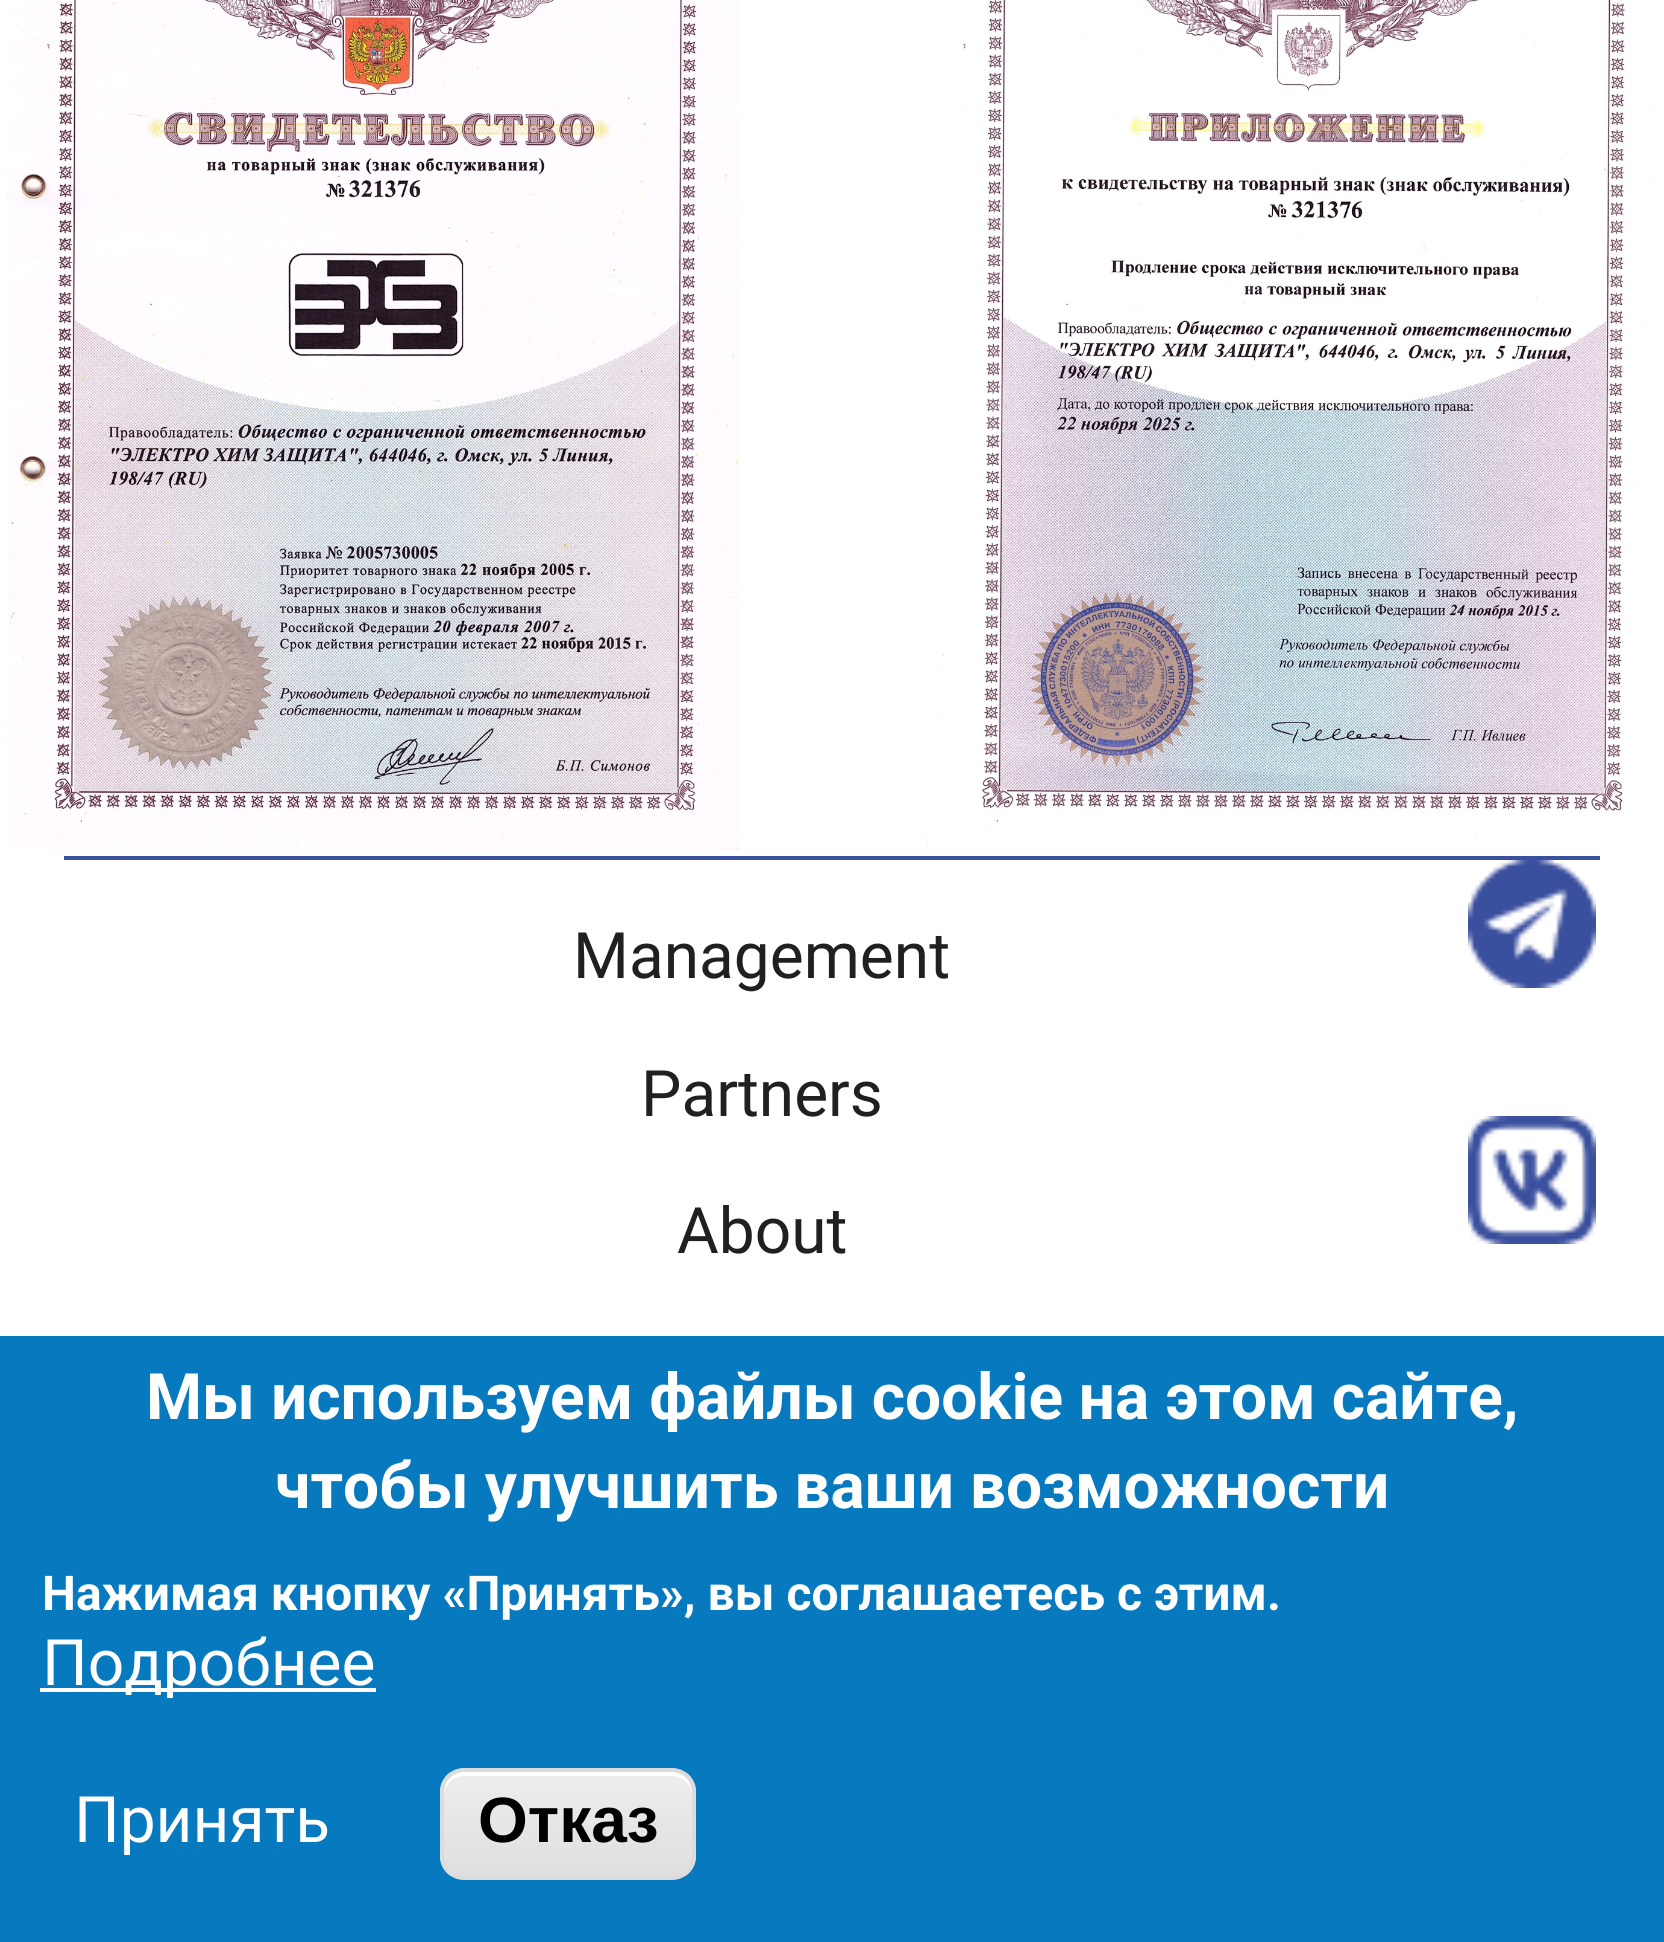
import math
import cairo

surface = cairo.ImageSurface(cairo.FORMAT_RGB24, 1664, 1942)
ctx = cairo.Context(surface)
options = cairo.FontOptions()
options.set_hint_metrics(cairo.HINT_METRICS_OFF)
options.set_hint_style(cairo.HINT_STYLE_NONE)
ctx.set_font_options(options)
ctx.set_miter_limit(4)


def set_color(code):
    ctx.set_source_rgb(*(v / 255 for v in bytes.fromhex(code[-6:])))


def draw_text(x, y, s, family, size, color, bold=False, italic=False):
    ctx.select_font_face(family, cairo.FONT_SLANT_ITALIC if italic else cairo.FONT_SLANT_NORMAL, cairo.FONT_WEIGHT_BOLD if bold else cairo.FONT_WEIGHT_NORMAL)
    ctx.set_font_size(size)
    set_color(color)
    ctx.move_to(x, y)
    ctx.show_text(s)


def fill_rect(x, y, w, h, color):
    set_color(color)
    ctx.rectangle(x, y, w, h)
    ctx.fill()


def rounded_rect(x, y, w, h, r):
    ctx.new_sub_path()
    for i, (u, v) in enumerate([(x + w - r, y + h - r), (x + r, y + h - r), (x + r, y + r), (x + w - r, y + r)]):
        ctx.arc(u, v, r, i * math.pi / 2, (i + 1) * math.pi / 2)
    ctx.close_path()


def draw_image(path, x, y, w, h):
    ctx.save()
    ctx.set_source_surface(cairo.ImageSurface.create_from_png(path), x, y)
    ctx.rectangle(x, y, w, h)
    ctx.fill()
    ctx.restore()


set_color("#ffffff")
ctx.paint()
draw_image("assets/img1.png", 7, 0, 734, 850)
draw_image("assets/img2.png", 927, 0, 728, 849)
fill_rect(64, 856, 1536, 4, "#3a4f9d")
draw_text(573, 978, "Management", "Roboto", 64, "#202020")
draw_text(641, 1116, "Partners", "Roboto", 64, "#202020")
draw_text(677, 1253, "About", "Roboto", 64, "#202020")
draw_image("assets/img3.png", 1468, 860, 128, 128)
draw_image("assets/img4.png", 1468, 1116, 128, 128)
fill_rect(0, 1336, 1664, 606, "#0779bf")
draw_text(146, 1419, "Мы используем файлы cookie на этом сайте,", "Roboto", 64, "#ffffff", bold=True)
draw_text(275, 1508, "чтобы улучшить ваши возможности", "Roboto", 64, "#ffffff", bold=True)
draw_text(42, 1610, "Нажимая кнопку «Принять», вы соглашаетесь с этим.", "Roboto", 48, "#ffffff", bold=True)
fill_rect(40, 1688, 336, 4, "#ffffff")
draw_text(42, 1685, "Подробнее", "Roboto", 64, "#ffffff")
draw_text(74, 1842, "Принять", "Roboto", 64, "#ffffff")
ctx.save()
rounded_rect(440, 1768, 256, 112, 24)
ctx.clip()
gradient = cairo.LinearGradient(568, 1772, 568, 1876)
gradient.add_color_stop_rgba(0.05, 0.929, 0.929, 0.929, 1)
gradient.add_color_stop_rgba(1, 0.875, 0.875, 0.875, 1)
ctx.set_source(gradient)
ctx.rectangle(440, 1772, 256, 104)
ctx.fill()
ctx.restore()
ctx.new_path()
ctx.move_to(464, 1776)
ctx.line_to(672, 1776)
ctx.curve_to(683, 1776, 692, 1785, 692, 1796)
ctx.line_to(692, 1792)
ctx.curve_to(692, 1781, 683, 1772, 672, 1772)
ctx.line_to(464, 1772)
ctx.curve_to(453, 1772, 444, 1781, 444, 1792)
ctx.line_to(444, 1796)
ctx.curve_to(444, 1785, 453, 1776, 464, 1776)
ctx.close_path()
ctx.fill()
rounded_rect(442, 1770, 252, 108, 22)
set_color("#dcdcdc")
ctx.set_line_width(4)
ctx.stroke()
draw_text(478, 1842, "Отказ", "Liberation Sans", 64, "#000000", bold=True)
surface.write_to_png("output.png")
